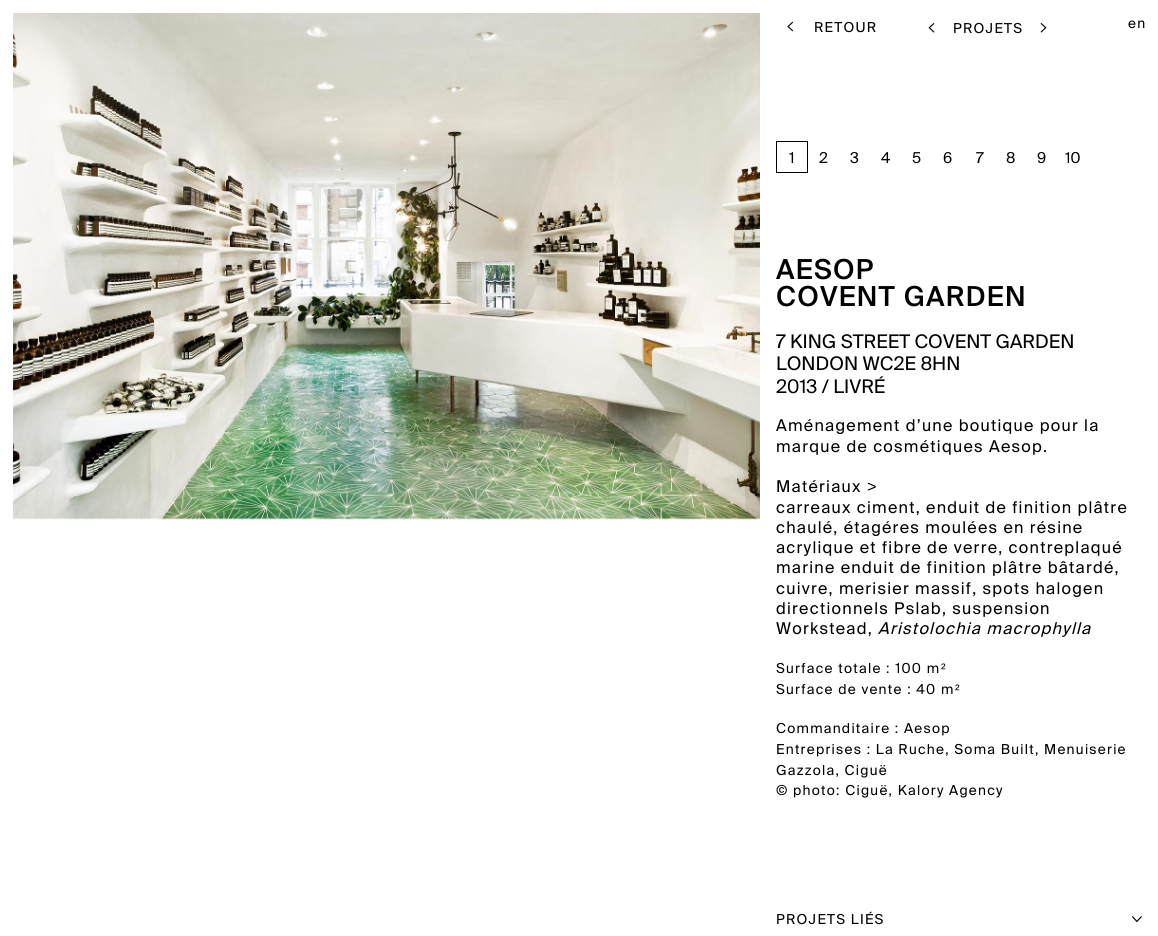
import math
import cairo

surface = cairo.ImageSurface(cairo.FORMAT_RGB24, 1158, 936)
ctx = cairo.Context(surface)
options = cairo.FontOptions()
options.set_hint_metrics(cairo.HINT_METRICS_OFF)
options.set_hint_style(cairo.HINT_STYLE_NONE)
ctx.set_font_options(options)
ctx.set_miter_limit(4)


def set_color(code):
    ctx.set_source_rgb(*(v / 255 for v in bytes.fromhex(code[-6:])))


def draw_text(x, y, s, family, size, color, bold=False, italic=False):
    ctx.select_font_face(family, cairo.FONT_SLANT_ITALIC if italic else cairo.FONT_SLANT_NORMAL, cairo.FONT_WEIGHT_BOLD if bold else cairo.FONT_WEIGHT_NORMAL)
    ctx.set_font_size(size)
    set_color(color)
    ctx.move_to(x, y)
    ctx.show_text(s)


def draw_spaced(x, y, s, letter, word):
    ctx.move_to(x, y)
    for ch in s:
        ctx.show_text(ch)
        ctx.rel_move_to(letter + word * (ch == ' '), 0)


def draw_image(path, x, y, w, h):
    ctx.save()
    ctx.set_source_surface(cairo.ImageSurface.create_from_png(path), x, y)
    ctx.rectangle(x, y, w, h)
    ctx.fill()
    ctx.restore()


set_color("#ffffff")
ctx.paint()
draw_image("assets/img1.png", 13, 13, 747, 507)
draw_image("assets/img2.png", 787, 21, 7, 11)
ctx.select_font_face("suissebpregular")
ctx.set_font_size(13.75)
set_color("#000000")
draw_spaced(814, 32, "RETOUR", 1.25, 0)
draw_image("assets/img3.png", 928, 23, 7, 10)
draw_spaced(953, 33, "PROJETS", 1.25, 0)
draw_image("assets/img4.png", 1040, 23, 7, 10)
ctx.rectangle(776.5, 141.5, 31, 31)
ctx.set_line_width(1)
ctx.stroke()
draw_text(789, 163, "1", "suissebpregular", 15, "#000000")
draw_text(819, 163, "2", "suissebpregular", 15, "#000000")
draw_text(850, 163, "3", "suissebpregular", 15, "#000000")
draw_text(881, 163, "4", "suissebpregular", 15, "#000000")
draw_text(912, 163, "5", "suissebpregular", 15, "#000000")
draw_text(943, 163, "6", "suissebpregular", 15, "#000000")
draw_text(976, 163, "7", "suissebpregular", 15, "#000000")
draw_text(1006, 163, "8", "suissebpregular", 15, "#000000")
draw_text(1037, 163, "9", "suissebpregular", 15, "#000000")
draw_text(1065, 163, "10", "suissebpregular", 15, "#000000")
ctx.select_font_face("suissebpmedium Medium")
ctx.set_font_size(27.5)
draw_spaced(776, 279, "AESOP", 1.25, 0)
draw_spaced(776, 306, "COVENT GARDEN", 1.25, 0)
draw_text(776, 348, "7 KING STREET COVENT GARDEN", "suissebpregular", 18.75, "#000000")
draw_text(776, 370, "LONDON WC2E 8HN", "suissebpregular", 18.75, "#000000")
draw_text(776, 393, "2013 / LIVRÉ", "suissebpregular", 18.75, "#000000")
ctx.set_font_size(16.25)
draw_spaced(776, 431, "Aménagement d’une boutique pour la", 1.25, 0)
draw_spaced(776, 452, "marque de cosmétiques Aesop.", 1.25, 0)
draw_spaced(776, 492, "Matériaux", 1.25, 0)
ctx.select_font_face("Liberation Sans")
draw_spaced(867, 492, ">", 1.25, 0)
ctx.select_font_face("suissebpregular")
draw_spaced(776, 513, "carreaux ciment, enduit de finition plâtre", 1.25, 0)
draw_spaced(776, 533, "chaulé, étagéres moulées en résine", 1.25, 0)
draw_spaced(776, 553, "acrylique et fibre de verre, contreplaqué", 1.25, 0)
draw_spaced(776, 573, "marine enduit de finition plâtre bâtardé,", 1.25, 0)
draw_spaced(776, 594, "cuivre, merisier massif, spots halogen", 1.25, 0)
draw_spaced(776, 614, "directionnels Pslab, suspension", 1.25, 0)
draw_spaced(776, 634, "Workstead,", 1.25, 0)
ctx.select_font_face("suissebpregular", cairo.FONT_SLANT_ITALIC)
draw_spaced(878, 634, "Aristolochia macrophylla", 1.25, 0)
ctx.select_font_face("suissebpregular")
ctx.set_font_size(13.75)
draw_spaced(776, 673, "Surface totale : 100 m", 1.25, 0)
ctx.select_font_face("Liberation Sans")
draw_spaced(941, 673, "²", 1.25, 0)
ctx.select_font_face("suissebpregular")
draw_spaced(776, 694, "Surface de vente : 40 m", 1.25, 0)
ctx.select_font_face("Liberation Sans")
draw_spaced(955, 694, "²", 1.25, 0)
ctx.select_font_face("suissebpregular")
draw_spaced(776, 733, "Commanditaire : Aesop", 1.25, 0)
draw_spaced(776, 754, "Entreprises : La Ruche, Soma Built, Menuiserie", 1.25, 0)
draw_spaced(776, 775, "Gazzola, Ciguë", 1.25, 0)
draw_spaced(776, 795, "© photo: Ciguë, Kalory Agency", 1.25, 0)
draw_spaced(776, 924, "PROJETS LIÉS", 1.25, 0)
draw_image("assets/img5.png", 1131, 916, 11, 7)
draw_spaced(1128, 28, "en", 1.25, 0)
surface.write_to_png("output.png")
